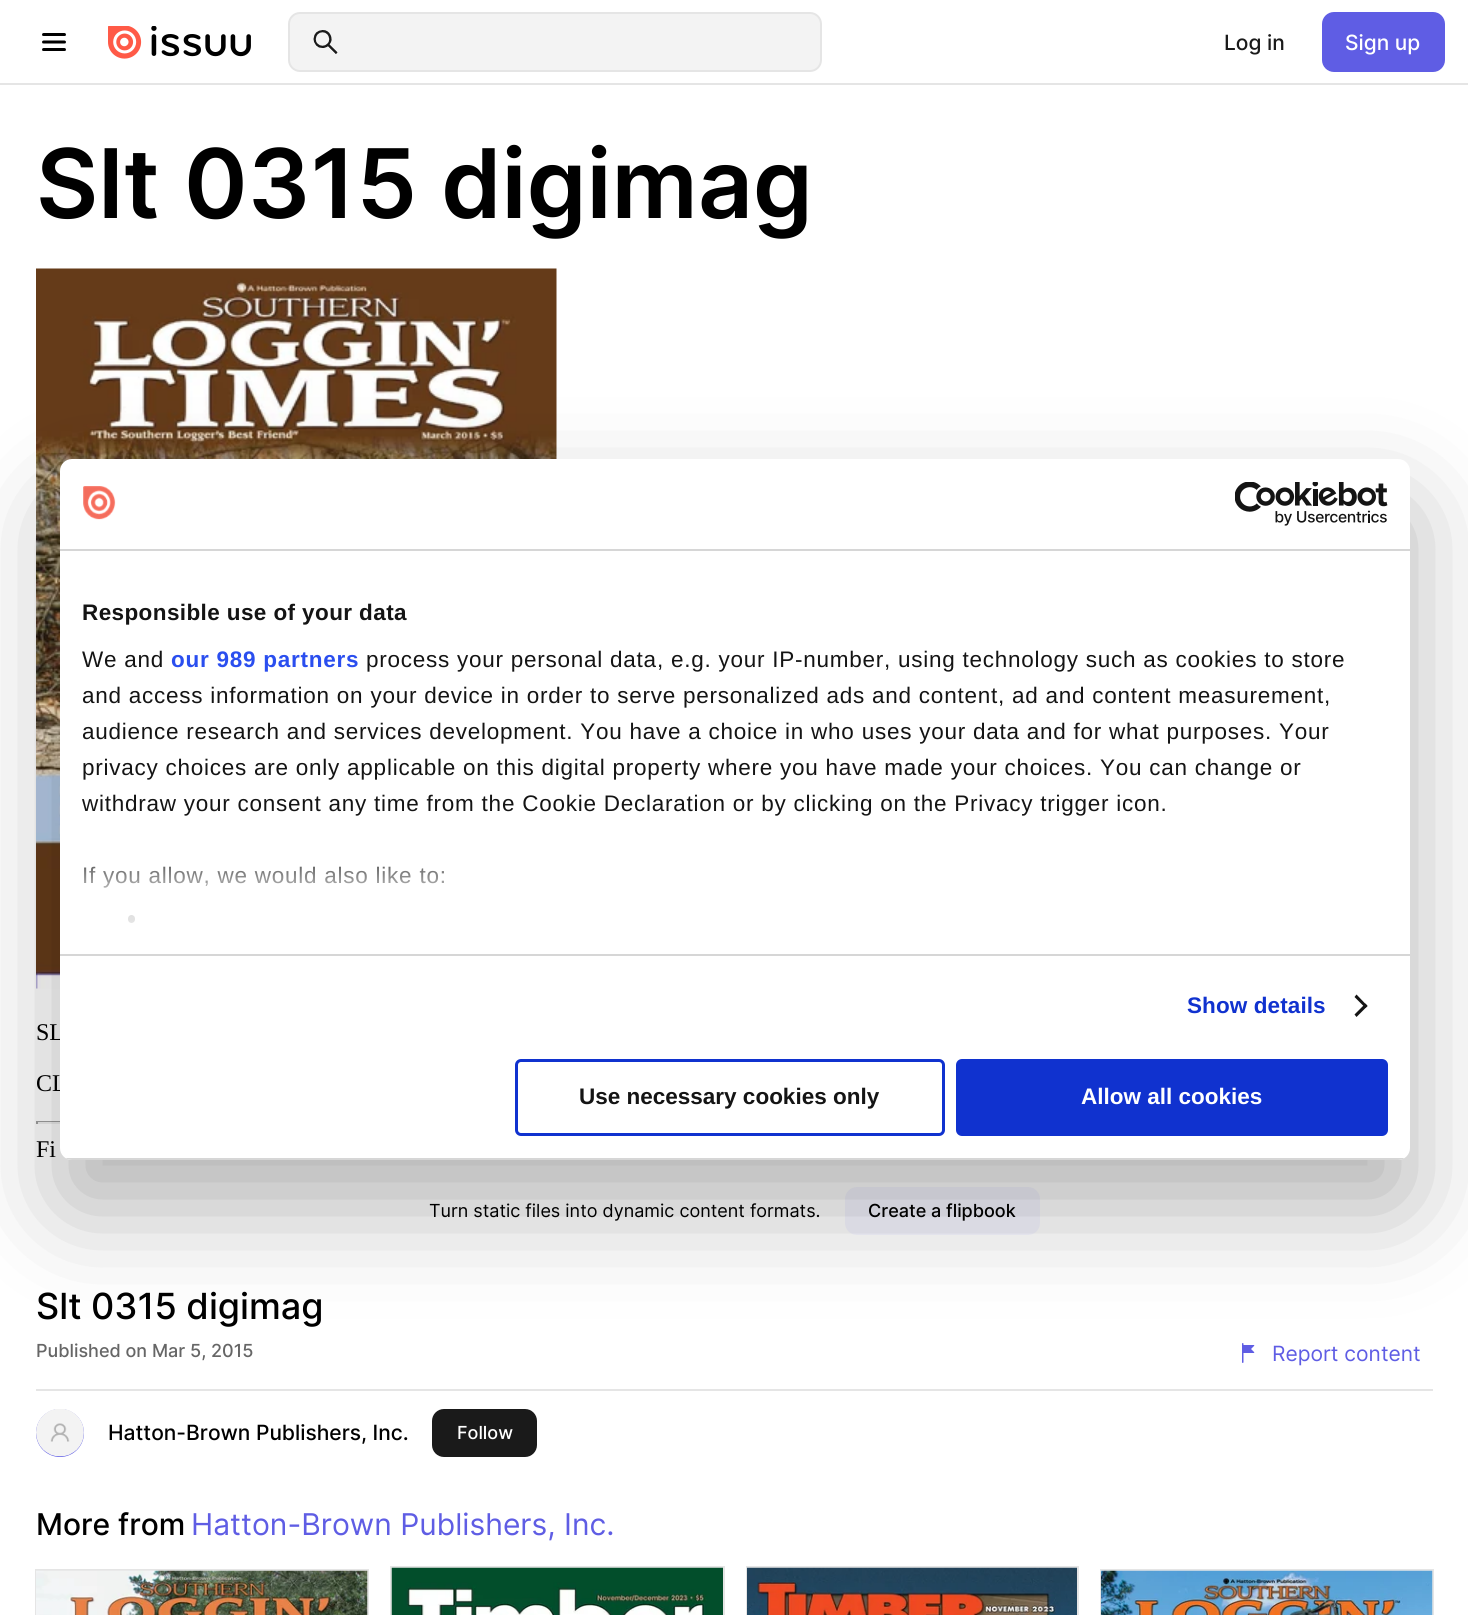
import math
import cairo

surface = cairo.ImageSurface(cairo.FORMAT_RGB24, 1468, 1615)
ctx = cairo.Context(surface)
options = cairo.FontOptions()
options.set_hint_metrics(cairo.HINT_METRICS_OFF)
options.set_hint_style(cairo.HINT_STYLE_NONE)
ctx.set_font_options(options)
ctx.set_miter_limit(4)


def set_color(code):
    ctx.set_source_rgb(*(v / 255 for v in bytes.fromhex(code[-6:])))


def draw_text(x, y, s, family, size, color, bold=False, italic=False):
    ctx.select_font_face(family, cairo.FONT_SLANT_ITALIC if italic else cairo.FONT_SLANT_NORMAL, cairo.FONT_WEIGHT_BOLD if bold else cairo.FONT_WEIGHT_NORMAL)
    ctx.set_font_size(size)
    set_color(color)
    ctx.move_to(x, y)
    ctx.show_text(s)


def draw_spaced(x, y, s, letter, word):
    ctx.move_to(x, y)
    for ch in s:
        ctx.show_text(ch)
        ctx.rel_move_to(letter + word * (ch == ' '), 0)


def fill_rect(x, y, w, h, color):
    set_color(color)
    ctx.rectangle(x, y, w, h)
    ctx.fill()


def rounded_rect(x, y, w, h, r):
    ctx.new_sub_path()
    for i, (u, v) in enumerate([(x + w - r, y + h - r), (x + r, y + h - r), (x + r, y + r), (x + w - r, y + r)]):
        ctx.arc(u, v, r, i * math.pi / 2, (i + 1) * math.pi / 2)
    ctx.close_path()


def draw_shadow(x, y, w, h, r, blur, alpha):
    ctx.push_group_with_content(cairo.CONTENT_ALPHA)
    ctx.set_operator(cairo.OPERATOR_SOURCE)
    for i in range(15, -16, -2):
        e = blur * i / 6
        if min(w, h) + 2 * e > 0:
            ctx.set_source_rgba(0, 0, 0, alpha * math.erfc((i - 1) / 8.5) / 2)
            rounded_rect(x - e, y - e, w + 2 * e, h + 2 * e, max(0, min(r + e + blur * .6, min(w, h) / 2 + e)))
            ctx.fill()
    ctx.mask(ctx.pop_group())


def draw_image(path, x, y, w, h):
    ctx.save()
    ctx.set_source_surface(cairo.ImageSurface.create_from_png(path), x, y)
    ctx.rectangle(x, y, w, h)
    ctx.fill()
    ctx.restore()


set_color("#ffffff")
ctx.paint()
fill_rect(0, 83, 1468, 2, "#e5e5e5")
draw_image("assets/img1.png", 42, 33, 24, 18)
draw_image("assets/img2.png", 108, 26, 143, 33)
set_color("#f3f3f3")
rounded_rect(289, 13, 532, 58, 11)
ctx.fill_preserve()
set_color("#e5e5e5")
ctx.stroke()
draw_image("assets/img3.png", 313, 30, 25, 24)
draw_text(1224, 50, "Log in", "Inter Medium", 21, "#1a1a1a")
set_color("#5f5de4")
rounded_rect(1322, 12, 123, 60, 12)
ctx.fill()
draw_text(1345, 50, "Sign up", "Inter Medium", 21, "#ffffff")
draw_text(36, 218, "Slt 0315 digimag", "Inter SemiBold", 96, "#000000")
draw_image("assets/img4.png", 36, 268, 521, 721)
draw_text(36, 1040, "SL", "Liberation Serif", 24, "#000000")
draw_text(36, 1091, "CL", "Liberation Serif", 24, "#000000")
fill_rect(36, 1121, 24, 1, "#9f9f9f")
fill_rect(36, 1122, 24, 2, "#eeeeee")
fill_rect(36, 1121, 2, 3, "#9f9f9f")
draw_text(36, 1157, "Fi", "Liberation Serif", 24, "#000000")
draw_text(429, 1217, "Turn static files into dynamic content formats.", "Inter", 18, "#000000")
set_color("#f5f5ff")
rounded_rect(845, 1187, 195, 48, 12)
ctx.fill()
draw_text(868, 1217, "Create a flipbook", "Inter Medium", 18, "#000000")
draw_text(36, 1319, "Slt 0315 digimag", "Inter Medium", 36, "#000000")
draw_text(36, 1357, "Published on Mar 5, 2015", "Inter Medium", 18, "#666666")
draw_image("assets/img5.png", 1242, 1343, 13, 20)
draw_text(1272, 1361, "Report content", "Inter", 21, "#5f5de4")
fill_rect(36, 1389, 1397, 2, "#e5e5e5")
set_color("#5f5de4")
ctx.new_path()
ctx.arc(60, 1433, 24, 0, 2 * math.pi)
ctx.fill()
draw_image("assets/img6.png", 36, 1409, 48, 48)
draw_text(108, 1440, "Hatton-Brown Publishers, Inc.", "Inter Medium", 21, "#000000")
set_color("#1a1a1a")
rounded_rect(432, 1409, 105, 48, 12)
ctx.fill()
draw_text(457, 1439, "Follow", "Inter Medium", 18, "#ffffff")
draw_text(36, 1535, "More from", "Inter Medium", 30, "#000000")
draw_text(191, 1535, "Hatton-Brown Publishers, Inc.", "Inter", 30, "#5f5de4")
ctx.rectangle(36, 1570, 332, 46)
set_color("#e5e5e5")
ctx.stroke()
draw_image("assets/img7.png", 36, 1570, 332, 45)
ctx.rectangle(391, 1567, 333, 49)
ctx.stroke()
draw_image("assets/img8.png", 391, 1567, 332, 48)
ctx.rectangle(747, 1567, 331, 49)
ctx.stroke()
draw_image("assets/img9.png", 747, 1567, 330, 48)
ctx.rectangle(1101, 1570, 332, 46)
ctx.stroke()
draw_image("assets/img10.png", 1101, 1570, 332, 45)
set_color("#000000")
draw_shadow(60, 507, 1350, 701, 12, 51, 0.3)
set_color("#ffffff")
rounded_rect(60, 459, 1350, 701, 12)
ctx.fill()
fill_rect(60, 549, 1350, 2, "#d6d6d6")
draw_image("assets/img11.png", 83, 486, 33, 34)
draw_image("assets/img12.png", 1235, 482, 153, 44)
fill_rect(60, 954, 1350, 2, "#d6d6d6")
ctx.select_font_face("Liberation Sans", cairo.FONT_SLANT_NORMAL, cairo.FONT_WEIGHT_BOLD)
ctx.set_font_size(22.5)
set_color("#141414")
draw_spaced(82, 620, "Responsible use of your data", 0.4, 0)
ctx.select_font_face("Liberation Sans")
draw_spaced(82, 667, "We and", 0.75, 0)
ctx.select_font_face("Liberation Sans", cairo.FONT_SLANT_NORMAL, cairo.FONT_WEIGHT_BOLD)
set_color("#2a4eef")
draw_spaced(171, 667, "our 989 partners", 0.75, 0)
ctx.select_font_face("Liberation Sans")
set_color("#141414")
draw_spaced(366, 667, "process your personal data, e.g. your IP-number, using technology such as cookies to store", 0.75, 0)
draw_spaced(82, 703, "and access information on your device in order to serve personalized ads and content, ad and content measurement,", 0.75, 0)
draw_spaced(82, 739, "audience research and services development. You have a choice in who uses your data and for what purposes. Your", 0.75, 0)
draw_spaced(82, 775, "privacy choices are only applicable on this digital property where you have made your choices. You can change or", 0.75, 0)
draw_spaced(82, 811, "withdraw your consent any time from the Cookie Declaration or by clicking on the Privacy trigger icon.", 0.75, 0)
draw_spaced(82, 883, "If you allow, we would also like to:", 0.75, 0)
rounded_rect(128, 915, 7, 8, 3.5)
ctx.fill()
gradient = cairo.LinearGradient(725, 953, 725, 841)
gradient.add_color_stop_rgba(0, 1, 1, 1, 1)
gradient.add_color_stop_rgba(0.5, 1, 1, 1, 0.8)
gradient.add_color_stop_rgba(1, 1, 1, 1, 0)
ctx.set_source(gradient)
ctx.rectangle(83, 866, 361, 57)
ctx.fill()
ctx.select_font_face("Liberation Sans", cairo.FONT_SLANT_NORMAL, cairo.FONT_WEIGHT_BOLD)
set_color("#1032cf")
draw_spaced(1187, 1013, "Show details", 0.1, 0)
set_color("#141414")
ctx.new_path()
ctx.move_to(1356.5, 994.5)
ctx.line_to(1367.5, 1006)
ctx.line_to(1365.5, 1008)
ctx.line_to(1354.5, 997)
ctx.close_path()
ctx.fill()
ctx.new_path()
ctx.move_to(1365.5, 1003.5)
ctx.line_to(1367.5, 1006)
ctx.line_to(1356.5, 1017)
ctx.line_to(1354.5, 1014.5)
ctx.close_path()
ctx.fill()
ctx.save()
rounded_rect(60, 459, 1350, 701, 12)
ctx.clip()
fill_rect(60, 1158, 1350, 2, "#d6d6d6")
ctx.restore()
rounded_rect(516.5, 1060.5, 427, 74, 4.5)
set_color("#1032cf")
ctx.set_line_width(3)
ctx.stroke()
draw_text(579, 1104, "Use necessary cookies only", "Liberation Sans", 22.5, "#141414", bold=True)
set_color("#1032cf")
rounded_rect(957.5, 1060.5, 429, 74, 4.5)
ctx.fill_preserve()
ctx.stroke()
draw_text(1081, 1104, "Allow all cookies", "Liberation Sans", 22.5, "#ffffff", bold=True)
surface.write_to_png("output.png")
